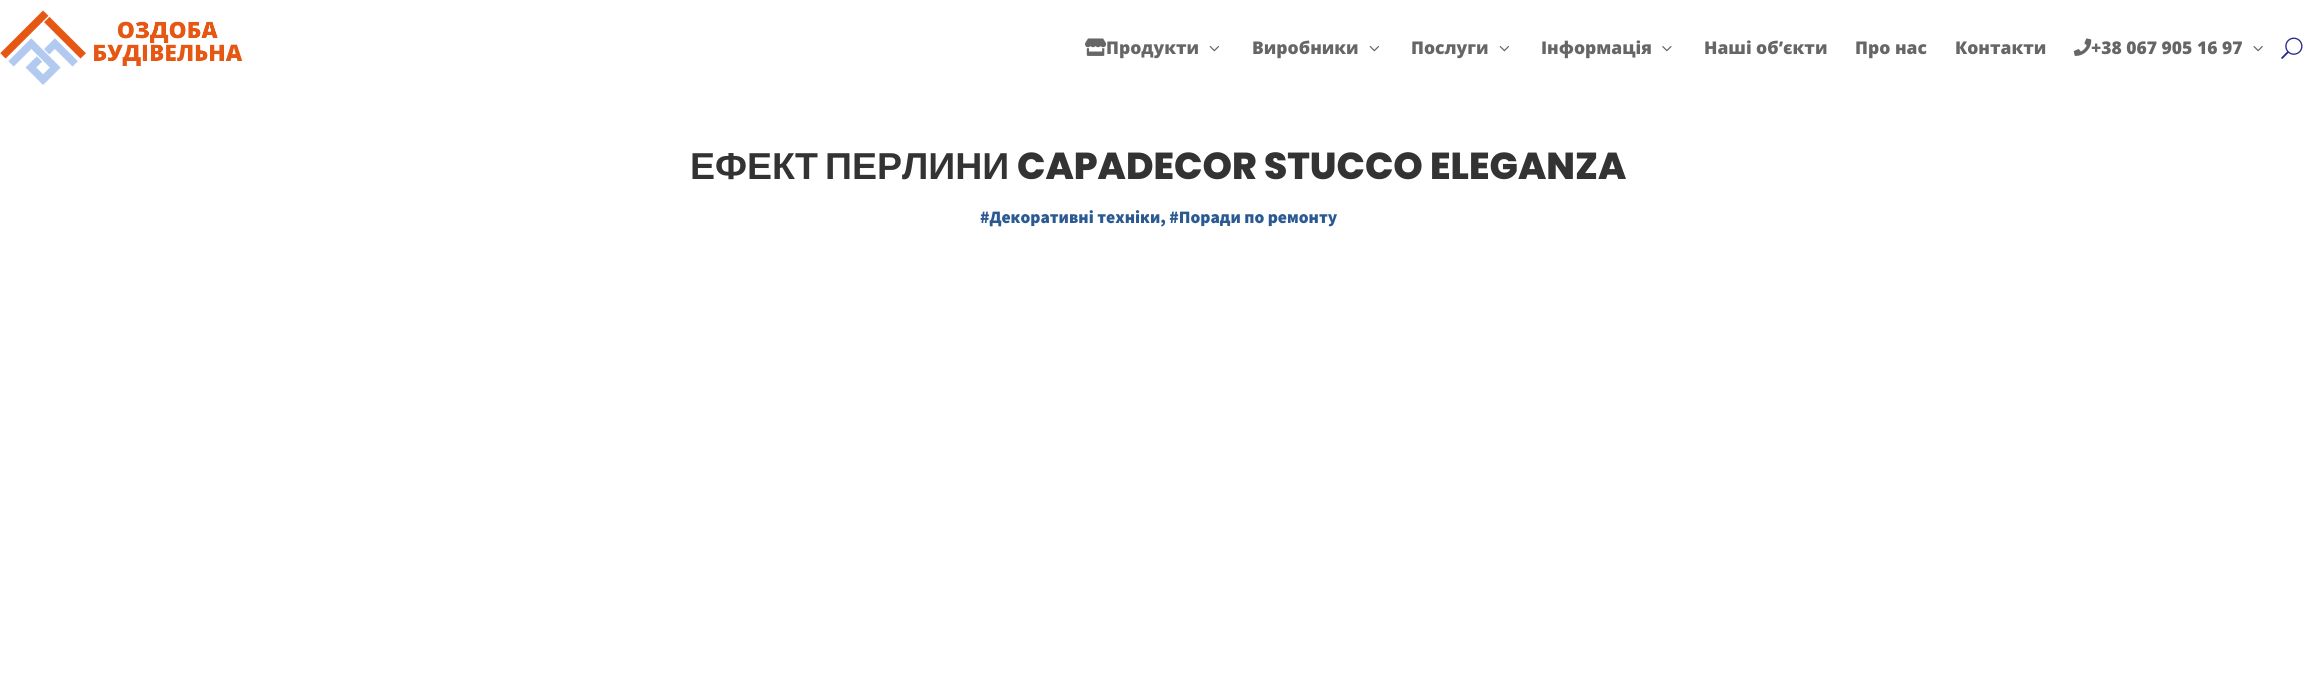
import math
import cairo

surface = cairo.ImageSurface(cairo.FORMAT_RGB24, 2316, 697)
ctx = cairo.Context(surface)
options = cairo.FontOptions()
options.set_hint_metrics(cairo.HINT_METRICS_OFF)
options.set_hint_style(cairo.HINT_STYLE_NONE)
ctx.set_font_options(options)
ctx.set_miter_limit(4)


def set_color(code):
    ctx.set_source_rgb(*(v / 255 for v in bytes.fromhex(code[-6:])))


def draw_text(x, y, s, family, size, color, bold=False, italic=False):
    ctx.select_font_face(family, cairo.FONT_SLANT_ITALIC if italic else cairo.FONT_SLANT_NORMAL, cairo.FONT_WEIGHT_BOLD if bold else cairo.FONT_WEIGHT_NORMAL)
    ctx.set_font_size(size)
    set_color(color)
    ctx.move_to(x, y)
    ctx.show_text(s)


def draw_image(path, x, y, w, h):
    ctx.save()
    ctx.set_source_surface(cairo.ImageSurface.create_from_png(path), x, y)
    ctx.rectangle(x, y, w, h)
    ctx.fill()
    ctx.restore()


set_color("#ffffff")
ctx.paint()
draw_image("assets/img1.png", 0, 10, 243, 75)
draw_image("assets/img2.png", 1085, 38, 22, 18)
draw_text(1106, 54, "Продукти", "Open Sans ExtraBold", 17.5, "#666666")
draw_image("assets/img3.png", 1209, 46, 10, 6)
draw_text(1252, 54, "Виробники", "Open Sans ExtraBold", 17.5, "#666666")
draw_image("assets/img3.png", 1369, 46, 10, 6)
draw_text(1411, 54, "Послуги", "Open Sans ExtraBold", 17.5, "#666666")
draw_image("assets/img3.png", 1499, 46, 10, 6)
draw_text(1541, 54, "Інформація", "Open Sans ExtraBold", 17.5, "#666666")
draw_image("assets/img4.png", 1662, 46, 10, 6)
draw_text(1704, 54, "Наші об’єкти", "Open Sans ExtraBold", 17.5, "#666666")
draw_text(1855, 54, "Про нас", "Open Sans ExtraBold", 17.5, "#666666")
draw_text(1955, 54, "Контакти", "Open Sans ExtraBold", 17.5, "#666666")
draw_image("assets/img5.png", 2073, 38, 19, 18)
draw_text(2091, 54, "+38 067 905 16 97", "Open Sans ExtraBold", 17.5, "#666666")
draw_image("assets/img6.png", 2253, 46, 10, 6)
draw_image("assets/img7.png", 2281, 37, 22, 22)
draw_text(690, 179, "ЕФЕКТ", "Liberation Sans", 37.5, "#333333", bold=True)
draw_text(825, 179, "ПЕРЛИНИ", "Liberation Sans", 37.5, "#333333", bold=True)
draw_text(1017, 179, "CAPADECOR STUCCO ELEGANZA", "Poppins ExtraBold", 37.5, "#333333")
draw_text(980, 223, "#Декоративні техніки, #Поради по ремонту", "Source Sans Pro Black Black", 17.5, "#2b5a93")
surface.write_to_png("output.png")
